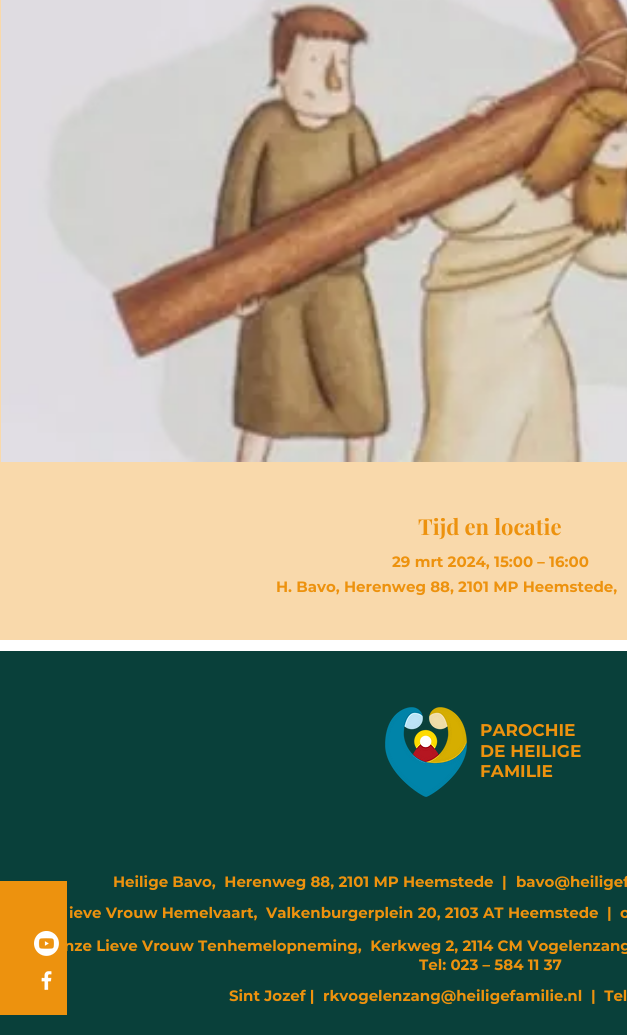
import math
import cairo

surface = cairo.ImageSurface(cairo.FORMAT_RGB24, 627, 1035)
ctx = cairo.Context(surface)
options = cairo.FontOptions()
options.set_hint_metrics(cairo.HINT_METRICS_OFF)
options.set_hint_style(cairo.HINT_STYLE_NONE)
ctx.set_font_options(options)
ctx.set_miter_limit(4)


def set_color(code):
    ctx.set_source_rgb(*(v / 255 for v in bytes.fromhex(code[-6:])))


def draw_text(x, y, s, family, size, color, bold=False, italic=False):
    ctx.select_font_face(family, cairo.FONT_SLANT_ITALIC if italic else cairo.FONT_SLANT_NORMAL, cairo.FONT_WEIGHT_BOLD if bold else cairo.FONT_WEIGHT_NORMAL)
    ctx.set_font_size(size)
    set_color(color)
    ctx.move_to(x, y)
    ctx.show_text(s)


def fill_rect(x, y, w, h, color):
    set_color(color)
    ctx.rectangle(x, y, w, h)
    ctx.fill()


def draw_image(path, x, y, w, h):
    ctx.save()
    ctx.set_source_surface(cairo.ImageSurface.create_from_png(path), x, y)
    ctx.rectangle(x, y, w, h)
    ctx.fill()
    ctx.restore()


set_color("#ffffff")
ctx.paint()
fill_rect(0, 0, 627, 640, "#f9d9ab")
draw_image("assets/img1.png", 1, 0, 626, 462)
draw_text(418, 535, "Tijd en locatie", "Playfair Display", 22, "#ed920e", bold=True)
draw_text(392, 567, "29 mrt 2024, 15:00 – 16:00", "Montserrat", 15, "#ed920e", bold=True)
draw_text(276, 592, "H. Bavo, Herenweg 88, 2101 MP Heemstede,", "Montserrat", 15, "#ed920e", bold=True)
fill_rect(0, 651, 627, 384, "#09403a")
fill_rect(0, 881, 67, 134, "#ed920e")
draw_image("assets/img2.png", 34, 931, 25, 25)
draw_image("assets/img3.png", 41, 971, 11, 19)
draw_image("assets/img4.png", 385, 707, 82, 90)
draw_text(480, 736, "PAROCHIE", "Montserrat", 17, "#ed920e", bold=True)
draw_text(480, 757, "DE HEILIGE", "Montserrat", 17, "#ed920e", bold=True)
draw_text(480, 777, "FAMILIE", "Montserrat", 17, "#ed920e", bold=True)
draw_text(113, 887, "Heilige Bavo,  Herenweg 88, 2101 MP Heemstede  |", "Montserrat", 15, "#ed920e", bold=True)
draw_text(516, 887, "bavo@heiligef", "Montserrat", 15, "#ed920e", bold=True)
draw_text(69, 918, "ieve Vrouw Hemelvaart,  Valkenburgerplein 20, 2103 AT Heemstede  |", "Montserrat", 15, "#ed920e", bold=True)
draw_text(620, 918, "o", "Montserrat", 15, "#ed920e", bold=True)
draw_text(64, 951, "nze Lieve Vrouw Tenhemelopneming,  Kerkweg 2, 2114 CM Vogelenzang", "Montserrat", 15, "#ed920e", bold=True)
draw_text(419, 970, "Tel: 023 – 584 11 37", "Montserrat", 15, "#ed920e", bold=True)
draw_text(229, 1001, "Sint Jozef |", "Montserrat", 15, "#ed920e", bold=True)
draw_text(323, 1001, "rkvogelenzang@heiligefamilie.nl", "Montserrat", 15, "#ed920e", bold=True)
draw_text(591, 1001, "|  Tel", "Montserrat", 15, "#ed920e", bold=True)
surface.write_to_png("output.png")
